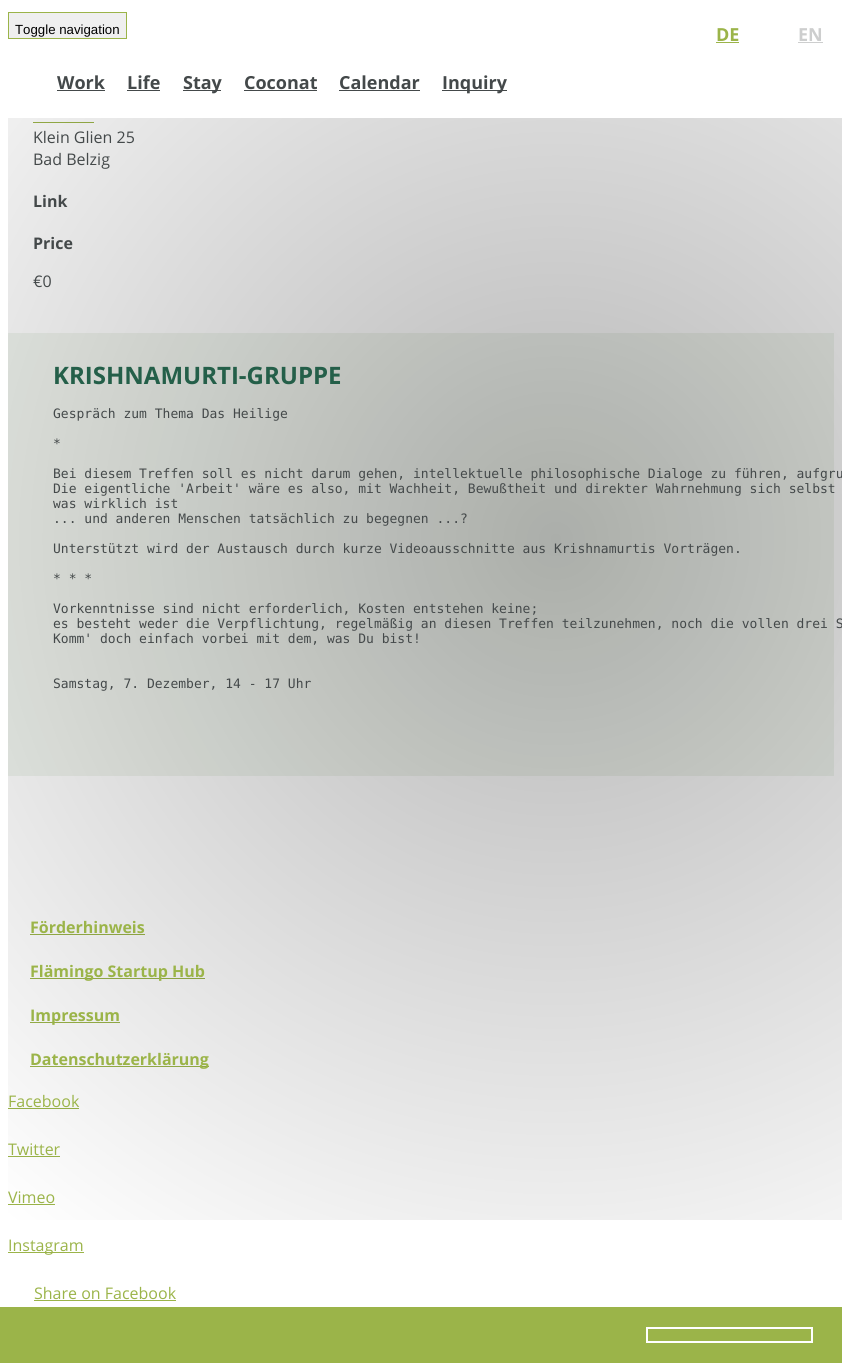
import math
import cairo

surface = cairo.ImageSurface(cairo.FORMAT_RGB24, 842, 1363)
ctx = cairo.Context(surface)
options = cairo.FontOptions()
options.set_hint_metrics(cairo.HINT_METRICS_OFF)
options.set_hint_style(cairo.HINT_STYLE_NONE)
ctx.set_font_options(options)
ctx.set_miter_limit(4)


def set_color(code):
    ctx.set_source_rgb(*(v / 255 for v in bytes.fromhex(code[-6:])))


def draw_text(x, y, s, family, size, color, bold=False, italic=False):
    ctx.select_font_face(family, cairo.FONT_SLANT_ITALIC if italic else cairo.FONT_SLANT_NORMAL, cairo.FONT_WEIGHT_BOLD if bold else cairo.FONT_WEIGHT_NORMAL)
    ctx.set_font_size(size)
    set_color(color)
    ctx.move_to(x, y)
    ctx.show_text(s)


def fill_rect(x, y, w, h, color):
    set_color(color)
    ctx.rectangle(x, y, w, h)
    ctx.fill()


set_color("#ffffff")
ctx.paint()
set_color("#efefef")
ctx.rectangle(8.5, 12.5, 118, 26)
ctx.fill_preserve()
set_color("#9bb449")
ctx.set_line_width(1)
ctx.stroke()
draw_text(15, 34, "Toggle navigation", "Liberation Sans", 13.25, "#000000")
draw_text(716, 41, "DE", "Open Sans", 18, "#9bb449", bold=True)
fill_rect(716, 42, 23, 1, "#9bb449")
draw_text(798, 41, "EN", "Open Sans", 18, "#cdcece", bold=True)
fill_rect(798, 42, 25, 1, "#cdcece")
draw_text(57, 89, "Work", "Open Sans", 18, "#44494a", bold=True)
fill_rect(57, 90, 48, 1, "#44494a")
draw_text(127, 89, "Life", "Open Sans", 18, "#44494a", bold=True)
fill_rect(127, 90, 33, 1, "#44494a")
fill_rect(183, 90, 38, 1, "#44494a")
draw_text(183, 89, "Stay", "Open Sans", 18, "#44494a", bold=True)
draw_text(244, 89, "Coconat", "Open Sans", 18, "#44494a", bold=True)
fill_rect(244, 90, 73, 1, "#44494a")
draw_text(339, 89, "Calendar", "Open Sans", 18, "#44494a", bold=True)
fill_rect(339, 90, 81, 1, "#44494a")
fill_rect(442, 90, 65, 1, "#44494a")
draw_text(442, 89, "Inquiry", "Open Sans", 18, "#44494a", bold=True)
fill_rect(8, 333, 826, 443, "#f1f5ef")
fill_rect(33, 122, 61, 1, "#9bb449")
fill_rect(30, 934, 115, 1, "#9bb449")
fill_rect(30, 978, 175, 1, "#9bb449")
fill_rect(30, 1022, 90, 1, "#9bb449")
fill_rect(30, 1066, 179, 1, "#9bb449")
fill_rect(8, 1108, 71, 1, "#9bb449")
fill_rect(8, 1156, 52, 1, "#9bb449")
fill_rect(8, 1204, 47, 1, "#9bb449")
gradient = cairo.RadialGradient(556, 539, 0, 556, 539, 874)
gradient.add_color_stop_rgba(0, 0, 0, 0, 0.29)
gradient.add_color_stop_rgba(1, 0, 0, 0, 0)
ctx.set_source(gradient)
ctx.rectangle(8, 118, 834, 1102)
ctx.fill()
draw_text(33, 143, "Klein Glien 25", "Open Sans", 16, "#44494a")
draw_text(33, 165, "Bad Belzig", "Open Sans", 16, "#44494a")
draw_text(33, 207, "Link", "Open Sans", 16, "#44494a", bold=True)
draw_text(33, 249, "Price", "Open Sans", 16, "#44494a", bold=True)
draw_text(33, 287, "€0", "Open Sans", 16, "#44494a")
draw_text(53, 384, "KRISHNAMURTI-GRUPPE", "Open Sans", 24, "#245f49", bold=True)
draw_text(53, 418, "Gespräch zum Thema Das Heilige", "DejaVu Sans Mono", 13, "#44494a")
draw_text(53, 448, "*", "DejaVu Sans Mono", 13, "#44494a")
draw_text(53, 478, "Bei diesem Treffen soll es nicht darum gehen, intellektuelle philosophische Dialoge zu führen, aufgru", "DejaVu Sans Mono", 13, "#44494a")
draw_text(53, 493, "Die eigentliche 'Arbeit' wäre es also, mit Wachheit, Bewußtheit und direkter Wahrnehmung sich selbst", "DejaVu Sans Mono", 13, "#44494a")
draw_text(53, 508, "was wirklich ist", "DejaVu Sans Mono", 13, "#44494a")
draw_text(53, 523, "... und anderen Menschen tatsächlich zu begegnen ...?", "DejaVu Sans Mono", 13, "#44494a")
draw_text(53, 553, "Unterstützt wird der Austausch durch kurze Videoausschnitte aus Krishnamurtis Vorträgen.", "DejaVu Sans Mono", 13, "#44494a")
draw_text(53, 583, "* * *", "DejaVu Sans Mono", 13, "#44494a")
draw_text(53, 613, "Vorkenntnisse sind nicht erforderlich, Kosten entstehen keine;", "DejaVu Sans Mono", 13, "#44494a")
draw_text(53, 628, "es besteht weder die Verpflichtung, regelmäßig an diesen Treffen teilzunehmen, noch die vollen drei S", "DejaVu Sans Mono", 13, "#44494a")
draw_text(53, 643, "Komm' doch einfach vorbei mit dem, was Du bist!", "DejaVu Sans Mono", 13, "#44494a")
draw_text(53, 688, "Samstag, 7. Dezember, 14 - 17 Uhr", "DejaVu Sans Mono", 13, "#44494a")
draw_text(30, 933, "Förderhinweis", "Open Sans", 16, "#9bb449", bold=True)
draw_text(30, 977, "Flämingo Startup Hub", "Open Sans", 16, "#9bb449", bold=True)
draw_text(30, 1021, "Impressum", "Open Sans", 16, "#9bb449", bold=True)
draw_text(30, 1065, "Datenschutzerklärung", "Open Sans", 16, "#9bb449", bold=True)
draw_text(8, 1107, "Facebook", "Open Sans", 16, "#9bb449")
draw_text(8, 1155, "Twitter", "Open Sans", 16, "#9bb449")
draw_text(8, 1203, "Vimeo", "Open Sans", 16, "#9bb449")
fill_rect(8, 1252, 76, 1, "#9bb449")
draw_text(8, 1251, "Instagram", "Open Sans", 16, "#9bb449")
draw_text(34, 1299, "Share on Facebook", "Open Sans", 16, "#9bb449")
fill_rect(34, 1300, 142, 1, "#9bb449")
fill_rect(0, 1307, 842, 56, "#9bb449")
ctx.rectangle(647, 1328, 165, 14)
set_color("#ffffff")
ctx.set_line_width(2)
ctx.stroke()
surface.write_to_png("output.png")
